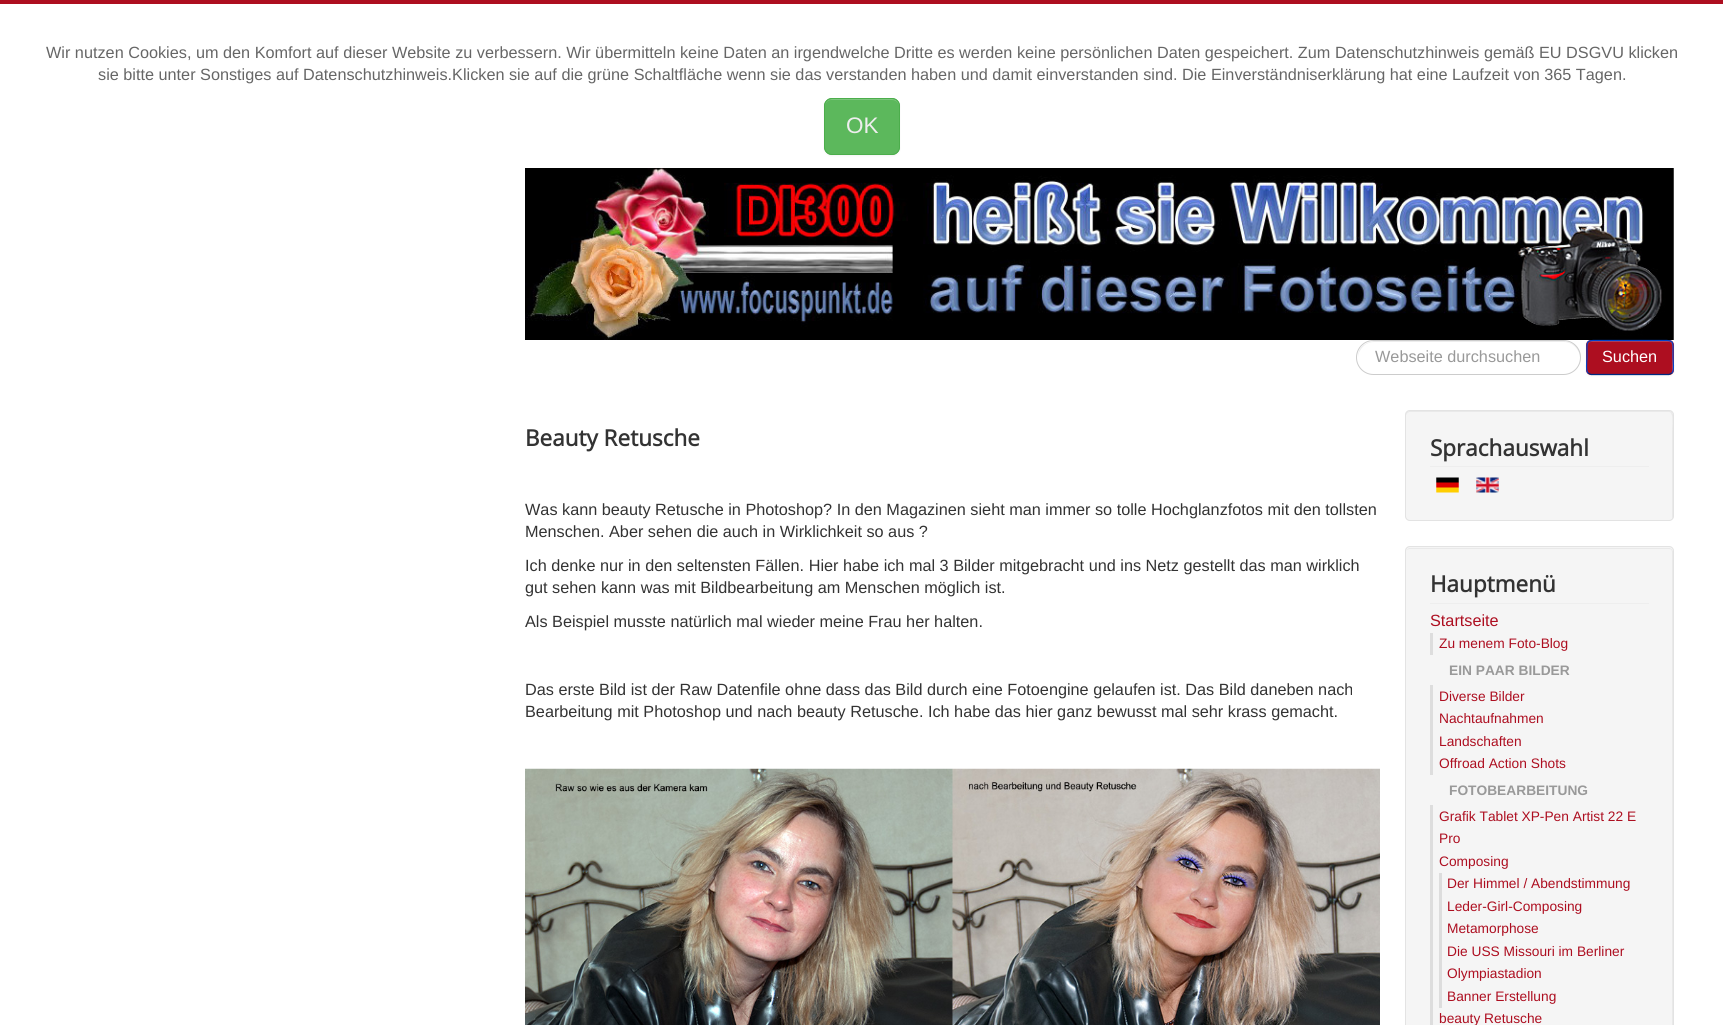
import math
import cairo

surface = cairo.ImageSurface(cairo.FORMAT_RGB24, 1723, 1025)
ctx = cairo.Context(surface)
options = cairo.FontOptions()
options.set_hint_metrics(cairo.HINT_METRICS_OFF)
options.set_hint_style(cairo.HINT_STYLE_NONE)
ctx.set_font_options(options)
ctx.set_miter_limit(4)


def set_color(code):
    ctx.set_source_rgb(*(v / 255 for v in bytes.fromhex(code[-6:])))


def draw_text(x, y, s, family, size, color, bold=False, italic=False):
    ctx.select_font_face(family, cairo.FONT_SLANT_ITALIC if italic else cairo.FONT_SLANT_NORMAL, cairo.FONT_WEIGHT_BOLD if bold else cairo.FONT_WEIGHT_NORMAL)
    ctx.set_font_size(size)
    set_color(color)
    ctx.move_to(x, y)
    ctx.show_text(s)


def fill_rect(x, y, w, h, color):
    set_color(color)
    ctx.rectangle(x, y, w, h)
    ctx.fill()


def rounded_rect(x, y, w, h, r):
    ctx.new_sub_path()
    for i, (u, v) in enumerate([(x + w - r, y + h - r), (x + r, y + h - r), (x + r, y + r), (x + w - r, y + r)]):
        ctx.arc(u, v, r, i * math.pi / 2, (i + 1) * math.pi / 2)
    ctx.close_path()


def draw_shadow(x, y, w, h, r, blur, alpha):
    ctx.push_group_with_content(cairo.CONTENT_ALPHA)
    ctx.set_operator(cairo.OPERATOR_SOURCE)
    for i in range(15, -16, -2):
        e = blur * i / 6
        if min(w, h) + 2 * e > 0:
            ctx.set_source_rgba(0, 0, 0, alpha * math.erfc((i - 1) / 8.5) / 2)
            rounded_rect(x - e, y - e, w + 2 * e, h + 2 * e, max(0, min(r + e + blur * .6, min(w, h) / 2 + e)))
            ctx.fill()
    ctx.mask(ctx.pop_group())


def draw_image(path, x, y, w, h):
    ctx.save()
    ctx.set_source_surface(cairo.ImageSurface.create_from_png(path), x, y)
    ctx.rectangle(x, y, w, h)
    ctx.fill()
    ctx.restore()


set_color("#ffffff")
ctx.paint()
fill_rect(0, 0, 1723, 4, "#ad0e20")
draw_text(46, 58, "Wir nutzen Cookies, um den Komfort auf dieser Website zu verbessern. Wir übermitteln keine Daten an irgendwelche Dritte es werden keine persönlichen Daten gespeichert. Zum Datenschutzhinweis gemäß EU DSGVU klicken", "Liberation Sans", 16.25, "#666666")
draw_text(98, 80, "sie bitte unter Sonstiges auf Datenschutzhinweis.Klicken sie auf die grüne Schaltfläche wenn sie das verstanden haben und damit einverstanden sind. Die Einverständniserklärung hat eine Laufzeit von 365 Tagen.", "Liberation Sans", 16.25, "#666666")
set_color("#000000")
draw_shadow(824, 99, 76, 57, 8, 1, 0.05)
set_color("#5cb85c")
rounded_rect(824, 98, 76, 57, 8)
ctx.fill()
set_color("#7dc67d")
ctx.new_path()
ctx.move_to(831, 100)
ctx.line_to(892, 100)
ctx.curve_to(896, 100, 899, 103, 899, 106)
ctx.curve_to(899, 97, 889, 99, 883, 99)
ctx.line_to(841, 99)
ctx.curve_to(835, 99, 825, 97, 825, 106)
ctx.curve_to(825, 103, 828, 100, 831, 100)
ctx.close_path()
ctx.fill()
rounded_rect(824.5, 98.5, 75, 56, 7.5)
set_color("#4cae4c")
ctx.set_line_width(1)
ctx.stroke()
draw_text(846, 133, "OK", "Liberation Sans", 22.5, "#eeeeee")
draw_image("assets/img1.png", 525, 168, 1149, 172)
set_color("#ececec")
ctx.new_path()
ctx.move_to(1374, 342)
ctx.line_to(1564, 342)
ctx.curve_to(1573, 342, 1580, 350, 1580, 358)
ctx.curve_to(1581, 334, 1544, 341, 1532, 341)
ctx.line_to(1406, 341)
ctx.curve_to(1394, 341, 1357, 334, 1358, 358)
ctx.curve_to(1358, 350, 1365, 342, 1374, 342)
ctx.close_path()
ctx.fill()
rounded_rect(1356.5, 340.5, 224, 34, 17)
set_color("#cccccc")
ctx.stroke()
draw_text(1375, 362, "Webseite durchsuchen", "Liberation Sans", 16.25, "#999999")
set_color("#000000")
draw_shadow(1586, 341, 88, 35, 5, 1, 0.05)
set_color("#ad0e20")
rounded_rect(1586, 340, 88, 35, 5)
ctx.fill()
set_color("#bd3e4d")
ctx.new_path()
ctx.move_to(1591, 342)
ctx.line_to(1669, 342)
ctx.curve_to(1674, 342, 1672, 352, 1672, 354)
ctx.line_to(1672, 373)
ctx.curve_to(1672, 372, 1673, 371, 1673, 370)
ctx.line_to(1673, 345)
ctx.curve_to(1673, 343, 1671, 341, 1669, 341)
ctx.line_to(1592, 341)
ctx.curve_to(1590, 341, 1588, 343, 1588, 345)
ctx.line_to(1588, 346)
ctx.curve_to(1588, 344, 1589, 342, 1591, 342)
ctx.close_path()
ctx.fill()
ctx.new_path()
ctx.move_to(1672, 373)
ctx.line_to(1669, 374.5)
ctx.line_to(1591, 374.5)
ctx.line_to(1588, 373)
set_color("#002a80")
ctx.set_line_width(1.2)
ctx.stroke()
ctx.new_path()
ctx.move_to(1588, 373)
ctx.curve_to(1585.5, 370.5, 1587, 360.5, 1587, 357.5)
ctx.curve_to(1587, 338.5, 1584.5, 340.5, 1604, 340.5)
ctx.line_to(1656, 340.5)
ctx.curve_to(1675.5, 340.5, 1673, 338.5, 1673, 357.5)
ctx.curve_to(1673, 360.5, 1674.5, 370.5, 1672, 373)
set_color("#0044cc")
ctx.stroke()
draw_text(1602, 362, "Suchen", "Liberation Sans", 16.25, "#ffffff")
draw_text(525, 446, "Beauty Retusche", "Open Sans", 22.5, "#333333", bold=True)
draw_text(525, 515, "Was kann beauty Retusche in Photoshop? In den Magazinen sieht man immer so tolle Hochglanzfotos mit den tollsten", "Liberation Sans", 16.25, "#333333")
draw_text(525, 537, "Menschen. Aber sehen die auch in Wirklichkeit so aus ?", "Liberation Sans", 16.25, "#333333")
draw_text(525, 571, "Ich denke nur in den seltensten Fällen. Hier habe ich mal 3 Bilder mitgebracht und ins Netz gestellt das man wirklich", "Liberation Sans", 16.25, "#333333")
draw_text(525, 593, "gut sehen kann was mit Bildbearbeitung am Menschen möglich ist.", "Liberation Sans", 16.25, "#333333")
draw_text(525, 627, "Als Beispiel musste natürlich mal wieder meine Frau her halten.", "Liberation Sans", 16.25, "#333333")
draw_text(525, 695, "Das erste Bild ist der Raw Datenfile ohne dass das Bild durch eine Fotoengine gelaufen ist. Das Bild daneben nach", "Liberation Sans", 16.25, "#333333")
draw_text(525, 717, "Bearbeitung mit Photoshop und nach beauty Retusche. Ich habe das hier ganz bewusst mal sehr krass gemacht.", "Liberation Sans", 16.25, "#333333")
draw_image("assets/img2.png", 525, 768, 855, 257)
set_color("#f5f5f5")
rounded_rect(1405, 410, 269, 111, 5)
ctx.fill()
set_color("#e9e9e9")
ctx.new_path()
ctx.move_to(1410, 412)
ctx.line_to(1669, 412)
ctx.curve_to(1674, 412, 1672, 425, 1672, 433)
ctx.line_to(1672, 519)
ctx.curve_to(1673, 518, 1673, 517, 1673, 516)
ctx.line_to(1673, 415)
ctx.curve_to(1673, 413, 1671, 411, 1669, 411)
ctx.line_to(1410, 411)
ctx.curve_to(1408, 411, 1406, 413, 1406, 415)
ctx.line_to(1406, 416)
ctx.curve_to(1406, 414, 1408, 412, 1410, 412)
ctx.close_path()
ctx.fill()
rounded_rect(1405.5, 410.5, 268, 110, 4.5)
set_color("#e3e3e3")
ctx.set_line_width(1)
ctx.stroke()
fill_rect(1430, 466, 219, 1, "#eeeeee")
draw_text(1430, 456, "Sprachauswahl", "Open Sans", 22.5, "#333333", bold=True)
draw_image("assets/img3.png", 1436, 477, 23, 16)
draw_image("assets/img4.png", 1476, 477, 23, 16)
set_color("#f5f5f5")
rounded_rect(1405, 546, 269, 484, 5)
ctx.fill()
set_color("#e9e9e9")
ctx.new_path()
ctx.move_to(1410, 549)
ctx.line_to(1669, 549)
ctx.curve_to(1671, 549, 1672, 550, 1672, 552)
ctx.line_to(1672, 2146)
ctx.line_to(1672, 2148)
ctx.curve_to(1672, 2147, 1673, 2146, 1673, 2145)
ctx.line_to(1673, 552)
ctx.curve_to(1673, 550, 1671, 548, 1669, 548)
ctx.line_to(1410, 548)
ctx.curve_to(1408, 548, 1406, 550, 1406, 552)
ctx.curve_to(1406, 550, 1408, 549, 1410, 549)
ctx.close_path()
ctx.fill()
rounded_rect(1405.5, 546.5, 268, 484, 4.5)
set_color("#e3e3e3")
ctx.stroke()
fill_rect(1430, 603, 219, 1, "#eeeeee")
draw_text(1430, 592, "Hauptmenü", "Open Sans", 22.5, "#333333", bold=True)
draw_text(1430, 626, "Startseite", "Liberation Sans", 16.25, "#ad0e20")
fill_rect(1430, 633, 3, 22, "#dddddd")
draw_text(1439, 648, "Zu menem Foto-Blog", "Liberation Sans", 13.75, "#ad0e20")
draw_text(1449, 675, "EIN PAAR BILDER", "Liberation Sans", 13.75, "#999999", bold=True)
fill_rect(1430, 685, 3, 90, "#dddddd")
draw_text(1439, 701, "Diverse Bilder", "Liberation Sans", 13.75, "#ad0e20")
draw_text(1439, 723, "Nachtaufnahmen", "Liberation Sans", 13.75, "#ad0e20")
draw_text(1439, 746, "Landschaften", "Liberation Sans", 13.75, "#ad0e20")
draw_text(1439, 768, "Offroad Action Shots", "Liberation Sans", 13.75, "#ad0e20")
draw_text(1449, 795, "FOTOBEARBEITUNG", "Liberation Sans", 13.75, "#999999", bold=True)
fill_rect(1430, 805, 3, 220, "#dddddd")
draw_text(1439, 821, "Grafik Tablet XP-Pen Artist 22 E", "Liberation Sans", 13.75, "#ad0e20")
draw_text(1439, 843, "Pro", "Liberation Sans", 13.75, "#ad0e20")
draw_text(1439, 866, "Composing", "Liberation Sans", 13.75, "#ad0e20")
fill_rect(1439, 873, 3, 135, "#dddddd")
draw_text(1447, 888, "Der Himmel / Abendstimmung", "Liberation Sans", 13.75, "#ad0e20")
draw_text(1447, 911, "Leder-Girl-Composing", "Liberation Sans", 13.75, "#ad0e20")
draw_text(1447, 933, "Metamorphose", "Liberation Sans", 13.75, "#ad0e20")
draw_text(1447, 956, "Die USS Missouri im Berliner", "Liberation Sans", 13.75, "#ad0e20")
draw_text(1447, 978, "Olympiastadion", "Liberation Sans", 13.75, "#ad0e20")
draw_text(1447, 1001, "Banner Erstellung", "Liberation Sans", 13.75, "#ad0e20")
draw_text(1439, 1023, "beauty Retusche", "Liberation Sans", 13.75, "#ad0e20")
surface.write_to_png("output.png")
